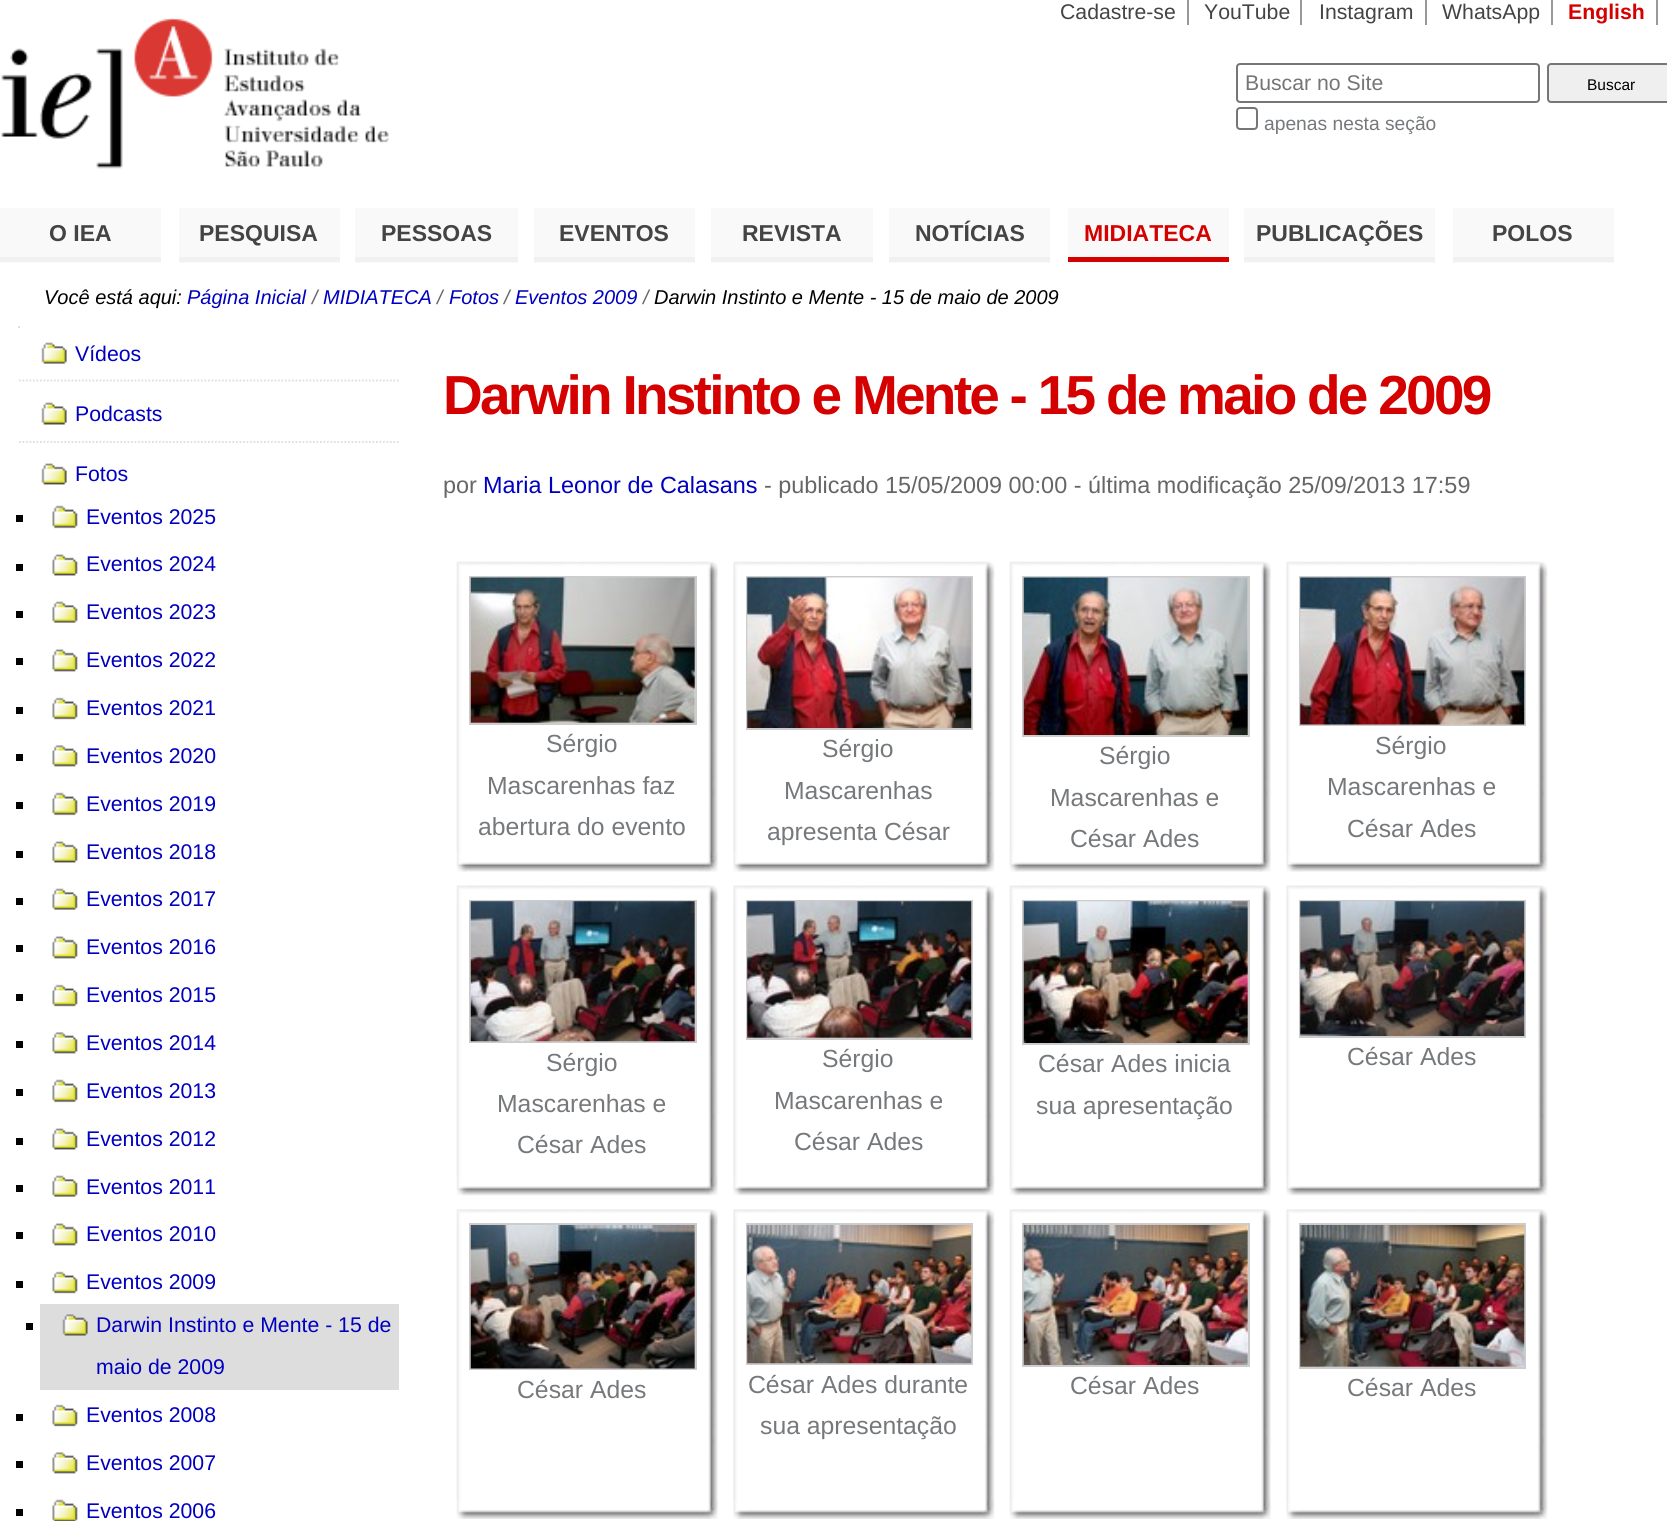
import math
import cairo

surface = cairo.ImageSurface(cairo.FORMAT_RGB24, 1667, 1521)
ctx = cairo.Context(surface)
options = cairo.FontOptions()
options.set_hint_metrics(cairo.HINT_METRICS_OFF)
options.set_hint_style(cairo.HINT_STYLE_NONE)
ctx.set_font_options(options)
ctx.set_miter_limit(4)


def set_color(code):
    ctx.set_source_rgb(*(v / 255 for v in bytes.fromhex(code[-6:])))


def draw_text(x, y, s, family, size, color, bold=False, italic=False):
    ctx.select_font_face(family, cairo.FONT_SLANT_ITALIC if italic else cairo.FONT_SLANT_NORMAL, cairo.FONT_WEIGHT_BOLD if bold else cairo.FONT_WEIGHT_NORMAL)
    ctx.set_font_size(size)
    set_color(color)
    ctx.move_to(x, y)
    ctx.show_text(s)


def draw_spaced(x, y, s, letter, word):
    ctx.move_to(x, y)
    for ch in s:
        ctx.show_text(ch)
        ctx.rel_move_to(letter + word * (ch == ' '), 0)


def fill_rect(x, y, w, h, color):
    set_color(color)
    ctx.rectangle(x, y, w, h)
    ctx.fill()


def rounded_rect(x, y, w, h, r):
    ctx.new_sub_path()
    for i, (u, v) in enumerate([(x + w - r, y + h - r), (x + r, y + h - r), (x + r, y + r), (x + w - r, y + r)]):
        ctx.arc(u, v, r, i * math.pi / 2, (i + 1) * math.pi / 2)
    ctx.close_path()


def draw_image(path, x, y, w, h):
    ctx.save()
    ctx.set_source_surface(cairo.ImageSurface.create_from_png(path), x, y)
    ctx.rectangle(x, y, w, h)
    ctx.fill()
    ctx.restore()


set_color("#ffffff")
ctx.paint()
draw_text(1060, 19, "Cadastre-se", "Liberation Sans", 21.25, "#444444")
fill_rect(1187, 0, 2, 25, "#999999")
draw_text(1204, 19, "YouTube", "Liberation Sans", 21.25, "#444444")
fill_rect(1300, 0, 2, 25, "#999999")
draw_text(1319, 19, "Instagram", "Liberation Sans", 21.25, "#444444")
fill_rect(1425, 0, 2, 25, "#999999")
draw_text(1442, 19, "WhatsApp", "Liberation Sans", 21.25, "#444444")
fill_rect(1551, 0, 2, 25, "#999999")
draw_text(1568, 19, "English", "Liberation Sans", 21.25, "#d50000", bold=True)
fill_rect(1656, 0, 2, 25, "#999999")
draw_image("assets/img1.png", 1, 18, 388, 151)
rounded_rect(1237, 64, 302, 38, 3)
set_color("#767676")
ctx.stroke()
draw_text(1245, 90, "Buscar no Site", "Liberation Sans", 21.25, "#757575")
set_color("#efefef")
rounded_rect(1548, 64, 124, 38, 3)
ctx.fill_preserve()
set_color("#767676")
ctx.stroke()
draw_text(1587, 90, "Buscar", "Liberation Sans", 15.5, "#000000")
rounded_rect(1237, 108, 20, 21, 3)
set_color("#767676")
ctx.stroke()
draw_text(1264, 130, "apenas nesta seção", "Liberation Sans", 19.25, "#76797c")
fill_rect(0, 208, 161, 55, "#f9f9f9")
fill_rect(0, 257, 161, 5, "#f1f1f1")
draw_text(49, 241, "O IEA", "Liberation Sans", 23, "#444444", bold=True)
fill_rect(179, 208, 161, 55, "#f9f9f9")
fill_rect(179, 257, 161, 5, "#f1f1f1")
draw_text(199, 241, "PESQUISA", "Liberation Sans", 23, "#444444", bold=True)
fill_rect(355, 208, 163, 55, "#f9f9f9")
fill_rect(355, 257, 163, 5, "#f1f1f1")
draw_text(381, 241, "PESSOAS", "Liberation Sans", 23, "#444444", bold=True)
fill_rect(534, 208, 161, 55, "#f9f9f9")
fill_rect(534, 257, 161, 5, "#f1f1f1")
draw_text(559, 241, "EVENTOS", "Liberation Sans", 23, "#444444", bold=True)
fill_rect(711, 208, 162, 55, "#f9f9f9")
fill_rect(711, 257, 162, 5, "#f1f1f1")
draw_text(742, 241, "REVISTA", "Liberation Sans", 23, "#444444", bold=True)
fill_rect(889, 208, 161, 55, "#f9f9f9")
fill_rect(889, 257, 161, 5, "#f1f1f1")
draw_text(915, 241, "NOTÍCIAS", "Liberation Sans", 23, "#444444", bold=True)
fill_rect(1068, 208, 161, 55, "#f9f9f9")
fill_rect(1068, 257, 161, 5, "#d50000")
draw_text(1084, 241, "MIDIATECA", "Liberation Sans", 23, "#d50000", bold=True)
fill_rect(1244, 208, 191, 55, "#f9f9f9")
fill_rect(1244, 257, 191, 5, "#f1f1f1")
draw_text(1256, 241, "PUBLICAÇÕES", "Liberation Sans", 23, "#444444", bold=True)
fill_rect(1453, 208, 161, 55, "#f9f9f9")
fill_rect(1453, 257, 161, 5, "#f1f1f1")
draw_text(1492, 241, "POLOS", "Liberation Sans", 23, "#444444", bold=True)
draw_text(44, 304, "Você está aqui:", "Liberation Sans", 20, "#000000", italic=True)
draw_text(187, 304, "Página Inicial", "Liberation Sans", 20, "#0000c0", italic=True)
draw_text(312, 304, "/", "Liberation Sans", 20, "#666666", italic=True)
draw_text(323, 304, "MIDIATECA", "Liberation Sans", 20, "#0000c0", italic=True)
draw_text(437, 304, "/", "Liberation Sans", 20, "#666666", italic=True)
draw_text(449, 304, "Fotos", "Liberation Sans", 20, "#0000c0", italic=True)
draw_text(504, 304, "/", "Liberation Sans", 20, "#666666", italic=True)
draw_text(515, 304, "Eventos 2009", "Liberation Sans", 20, "#0000c0", italic=True)
draw_text(643, 304, "/", "Liberation Sans", 20, "#666666", italic=True)
draw_text(654, 304, "Darwin Instinto e Mente - 15 de maio de 2009", "Liberation Sans", 20, "#000000", italic=True)
fill_rect(18, 326, 2, 2, "#dddddd")
ctx.new_path()
ctx.move_to(19, 380.5)
ctx.line_to(399, 380.5)
ctx.set_line_width(1.8)
ctx.set_dash([1.75, 1.75])
ctx.stroke()
draw_image("assets/img2.png", 41, 342, 26, 22)
draw_text(75, 361, "Vídeos", "Liberation Sans", 21.25, "#0000c0")
ctx.new_path()
ctx.move_to(19, 442)
ctx.line_to(399, 442)
set_color("#dddddd")
ctx.stroke()
draw_image("assets/img3.png", 41, 402, 26, 23)
draw_text(75, 421, "Podcasts", "Liberation Sans", 21.25, "#0000c0")
draw_image("assets/img4.png", 41, 463, 26, 22)
draw_text(75, 481, "Fotos", "Liberation Sans", 21.25, "#0000c0")
fill_rect(16, 515, 7, 7, "#000000")
draw_image("assets/img5.png", 52, 505, 26, 24)
draw_text(86, 524, "Eventos 2025", "Liberation Sans", 21.25, "#0000c0")
fill_rect(16, 564, 7, 7, "#000000")
draw_image("assets/img6.png", 52, 554, 26, 22)
draw_text(86, 571, "Eventos 2024", "Liberation Sans", 21.25, "#0000c0")
fill_rect(16, 611, 7, 7, "#000000")
draw_image("assets/img7.png", 52, 601, 26, 22)
draw_text(86, 619, "Eventos 2023", "Liberation Sans", 21.25, "#0000c0")
fill_rect(16, 658, 7, 7, "#000000")
draw_image("assets/img8.png", 52, 649, 26, 23)
draw_text(86, 667, "Eventos 2022", "Liberation Sans", 21.25, "#0000c0")
fill_rect(16, 707, 7, 7, "#000000")
draw_image("assets/img9.png", 52, 697, 26, 23)
draw_text(86, 715, "Eventos 2021", "Liberation Sans", 21.25, "#0000c0")
fill_rect(16, 754, 7, 7, "#000000")
draw_image("assets/img10.png", 52, 745, 26, 22)
draw_text(86, 763, "Eventos 2020", "Liberation Sans", 21.25, "#0000c0")
fill_rect(16, 802, 7, 7, "#000000")
draw_image("assets/img5.png", 52, 792, 26, 24)
draw_text(86, 811, "Eventos 2019", "Liberation Sans", 21.25, "#0000c0")
fill_rect(16, 851, 7, 7, "#000000")
draw_image("assets/img6.png", 52, 841, 26, 22)
draw_text(86, 859, "Eventos 2018", "Liberation Sans", 21.25, "#0000c0")
fill_rect(16, 898, 7, 7, "#000000")
draw_image("assets/img7.png", 52, 888, 26, 22)
draw_text(86, 906, "Eventos 2017", "Liberation Sans", 21.25, "#0000c0")
fill_rect(16, 945, 7, 7, "#000000")
draw_image("assets/img8.png", 52, 936, 26, 23)
draw_text(86, 954, "Eventos 2016", "Liberation Sans", 21.25, "#0000c0")
fill_rect(16, 994, 7, 7, "#000000")
draw_image("assets/img9.png", 52, 984, 26, 23)
draw_text(86, 1002, "Eventos 2015", "Liberation Sans", 21.25, "#0000c0")
fill_rect(16, 1041, 7, 7, "#000000")
draw_image("assets/img10.png", 52, 1032, 26, 22)
draw_text(86, 1050, "Eventos 2014", "Liberation Sans", 21.25, "#0000c0")
fill_rect(16, 1089, 7, 7, "#000000")
draw_image("assets/img5.png", 52, 1079, 26, 24)
draw_text(86, 1098, "Eventos 2013", "Liberation Sans", 21.25, "#0000c0")
fill_rect(16, 1138, 7, 7, "#000000")
draw_image("assets/img6.png", 52, 1128, 26, 22)
draw_text(86, 1146, "Eventos 2012", "Liberation Sans", 21.25, "#0000c0")
fill_rect(16, 1185, 7, 7, "#000000")
draw_image("assets/img7.png", 52, 1175, 26, 22)
draw_text(86, 1194, "Eventos 2011", "Liberation Sans", 21.25, "#0000c0")
fill_rect(16, 1232, 7, 7, "#000000")
draw_image("assets/img8.png", 52, 1223, 26, 23)
draw_text(86, 1241, "Eventos 2010", "Liberation Sans", 21.25, "#0000c0")
fill_rect(16, 1281, 7, 7, "#000000")
draw_image("assets/img9.png", 52, 1271, 26, 23)
draw_text(86, 1289, "Eventos 2009", "Liberation Sans", 21.25, "#0000c0")
fill_rect(26, 1323, 7, 7, "#000000")
fill_rect(40, 1304, 359, 86, "#dddddd")
draw_image("assets/img11.png", 62, 1314, 26, 22)
draw_text(96, 1332, "Darwin Instinto e Mente - 15 de", "Liberation Sans", 21.25, "#0000c0")
draw_text(96, 1374, "maio de 2009", "Liberation Sans", 21.25, "#0000c0")
fill_rect(16, 1414, 7, 7, "#000000")
draw_image("assets/img9.png", 52, 1404, 26, 23)
draw_text(86, 1422, "Eventos 2008", "Liberation Sans", 21.25, "#0000c0")
fill_rect(16, 1461, 7, 7, "#000000")
draw_image("assets/img10.png", 52, 1452, 26, 22)
draw_text(86, 1470, "Eventos 2007", "Liberation Sans", 21.25, "#0000c0")
fill_rect(16, 1509, 7, 7, "#000000")
draw_image("assets/img12.png", 52, 1499, 26, 22)
draw_text(86, 1518, "Eventos 2006", "Liberation Sans", 21.25, "#0000c0")
ctx.select_font_face("Liberation Sans", cairo.FONT_SLANT_NORMAL, cairo.FONT_WEIGHT_BOLD)
ctx.set_font_size(55)
set_color("#d50000")
draw_spaced(443, 414, "Darwin Instinto e Mente - 15 de maio de 2009", -2.75, 0)
draw_text(443, 493, "por", "Liberation Sans", 23.4, "#666666")
draw_text(483, 493, "Maria Leonor de Calasans", "Liberation Sans", 23.4, "#0000c0")
draw_text(764, 493, "- publicado 15/05/2009 00:00 - última modificação 25/09/2013 17:59", "Liberation Sans", 23.4, "#666666")
draw_image("assets/img13.png", 456, 561, 262, 311)
ctx.rectangle(470, 577, 226, 147)
set_color("#cccccc")
ctx.set_line_width(2)
ctx.set_dash([])
ctx.stroke()
draw_image("assets/img14.png", 470, 577, 225, 146)
draw_text(546, 752, "Sérgio", "Liberation Sans", 24.75, "#76797c")
draw_text(487, 794, "Mascarenhas faz", "Liberation Sans", 24.75, "#76797c")
draw_text(478, 835, "abertura do evento", "Liberation Sans", 24.75, "#76797c")
draw_image("assets/img15.png", 733, 561, 262, 311)
ctx.rectangle(747, 577, 225, 152)
set_color("#cccccc")
ctx.stroke()
draw_image("assets/img16.png", 747, 577, 225, 151)
draw_text(822, 757, "Sérgio", "Liberation Sans", 24.75, "#76797c")
draw_text(784, 799, "Mascarenhas", "Liberation Sans", 24.75, "#76797c")
draw_text(767, 840, "apresenta César", "Liberation Sans", 24.75, "#76797c")
draw_image("assets/img17.png", 1009, 561, 262, 311)
ctx.rectangle(1023, 577, 226, 159)
set_color("#cccccc")
ctx.stroke()
draw_image("assets/img18.png", 1023, 577, 225, 158)
draw_text(1099, 764, "Sérgio", "Liberation Sans", 24.75, "#76797c")
draw_text(1050, 806, "Mascarenhas e", "Liberation Sans", 24.75, "#76797c")
draw_text(1070, 847, "César Ades", "Liberation Sans", 24.75, "#76797c")
draw_image("assets/img19.png", 1286, 561, 262, 311)
ctx.rectangle(1300, 577, 225, 148)
set_color("#cccccc")
ctx.stroke()
draw_image("assets/img20.png", 1300, 577, 225, 148)
draw_text(1375, 754, "Sérgio", "Liberation Sans", 24.75, "#76797c")
draw_text(1327, 795, "Mascarenhas e", "Liberation Sans", 24.75, "#76797c")
draw_text(1347, 837, "César Ades", "Liberation Sans", 24.75, "#76797c")
draw_image("assets/img21.png", 456, 885, 262, 311)
ctx.rectangle(470, 901, 226, 141)
set_color("#cccccc")
ctx.stroke()
draw_image("assets/img22.png", 470, 901, 225, 141)
draw_text(546, 1071, "Sérgio", "Liberation Sans", 24.75, "#76797c")
draw_text(497, 1112, "Mascarenhas e", "Liberation Sans", 24.75, "#76797c")
draw_text(517, 1153, "César Ades", "Liberation Sans", 24.75, "#76797c")
draw_image("assets/img23.png", 733, 885, 262, 311)
ctx.rectangle(747, 901, 225, 138)
set_color("#cccccc")
ctx.stroke()
draw_image("assets/img24.png", 747, 901, 225, 137)
draw_text(822, 1067, "Sérgio", "Liberation Sans", 24.75, "#76797c")
draw_text(774, 1109, "Mascarenhas e", "Liberation Sans", 24.75, "#76797c")
draw_text(794, 1150, "César Ades", "Liberation Sans", 24.75, "#76797c")
draw_image("assets/img25.png", 1009, 885, 262, 311)
ctx.rectangle(1023, 901, 226, 143)
set_color("#cccccc")
ctx.stroke()
draw_image("assets/img26.png", 1023, 901, 225, 142)
draw_text(1038, 1072, "César Ades inicia", "Liberation Sans", 24.75, "#76797c")
draw_text(1036, 1114, "sua apresentação", "Liberation Sans", 24.75, "#76797c")
draw_image("assets/img27.png", 1286, 885, 262, 311)
ctx.rectangle(1300, 901, 225, 136)
set_color("#cccccc")
ctx.stroke()
draw_image("assets/img28.png", 1300, 901, 225, 135)
draw_text(1347, 1065, "César Ades", "Liberation Sans", 24.75, "#76797c")
draw_image("assets/img29.png", 456, 1209, 262, 310)
ctx.rectangle(470, 1224, 226, 145)
set_color("#cccccc")
ctx.stroke()
draw_image("assets/img30.png", 470, 1225, 225, 144)
draw_text(517, 1398, "César Ades", "Liberation Sans", 24.75, "#76797c")
draw_image("assets/img31.png", 733, 1209, 262, 310)
ctx.rectangle(747, 1224, 225, 140)
set_color("#cccccc")
ctx.stroke()
draw_image("assets/img32.png", 747, 1225, 225, 139)
draw_text(748, 1393, "César Ades durante", "Liberation Sans", 24.75, "#76797c")
draw_text(760, 1434, "sua apresentação", "Liberation Sans", 24.75, "#76797c")
draw_image("assets/img33.png", 1009, 1209, 262, 310)
ctx.rectangle(1023, 1224, 226, 142)
set_color("#cccccc")
ctx.stroke()
draw_image("assets/img34.png", 1023, 1225, 225, 140)
draw_text(1070, 1394, "César Ades", "Liberation Sans", 24.75, "#76797c")
draw_image("assets/img35.png", 1286, 1209, 262, 310)
ctx.rectangle(1300, 1224, 225, 144)
set_color("#cccccc")
ctx.stroke()
draw_image("assets/img36.png", 1300, 1225, 225, 142)
draw_text(1347, 1396, "César Ades", "Liberation Sans", 24.75, "#76797c")
surface.write_to_png("output.png")
